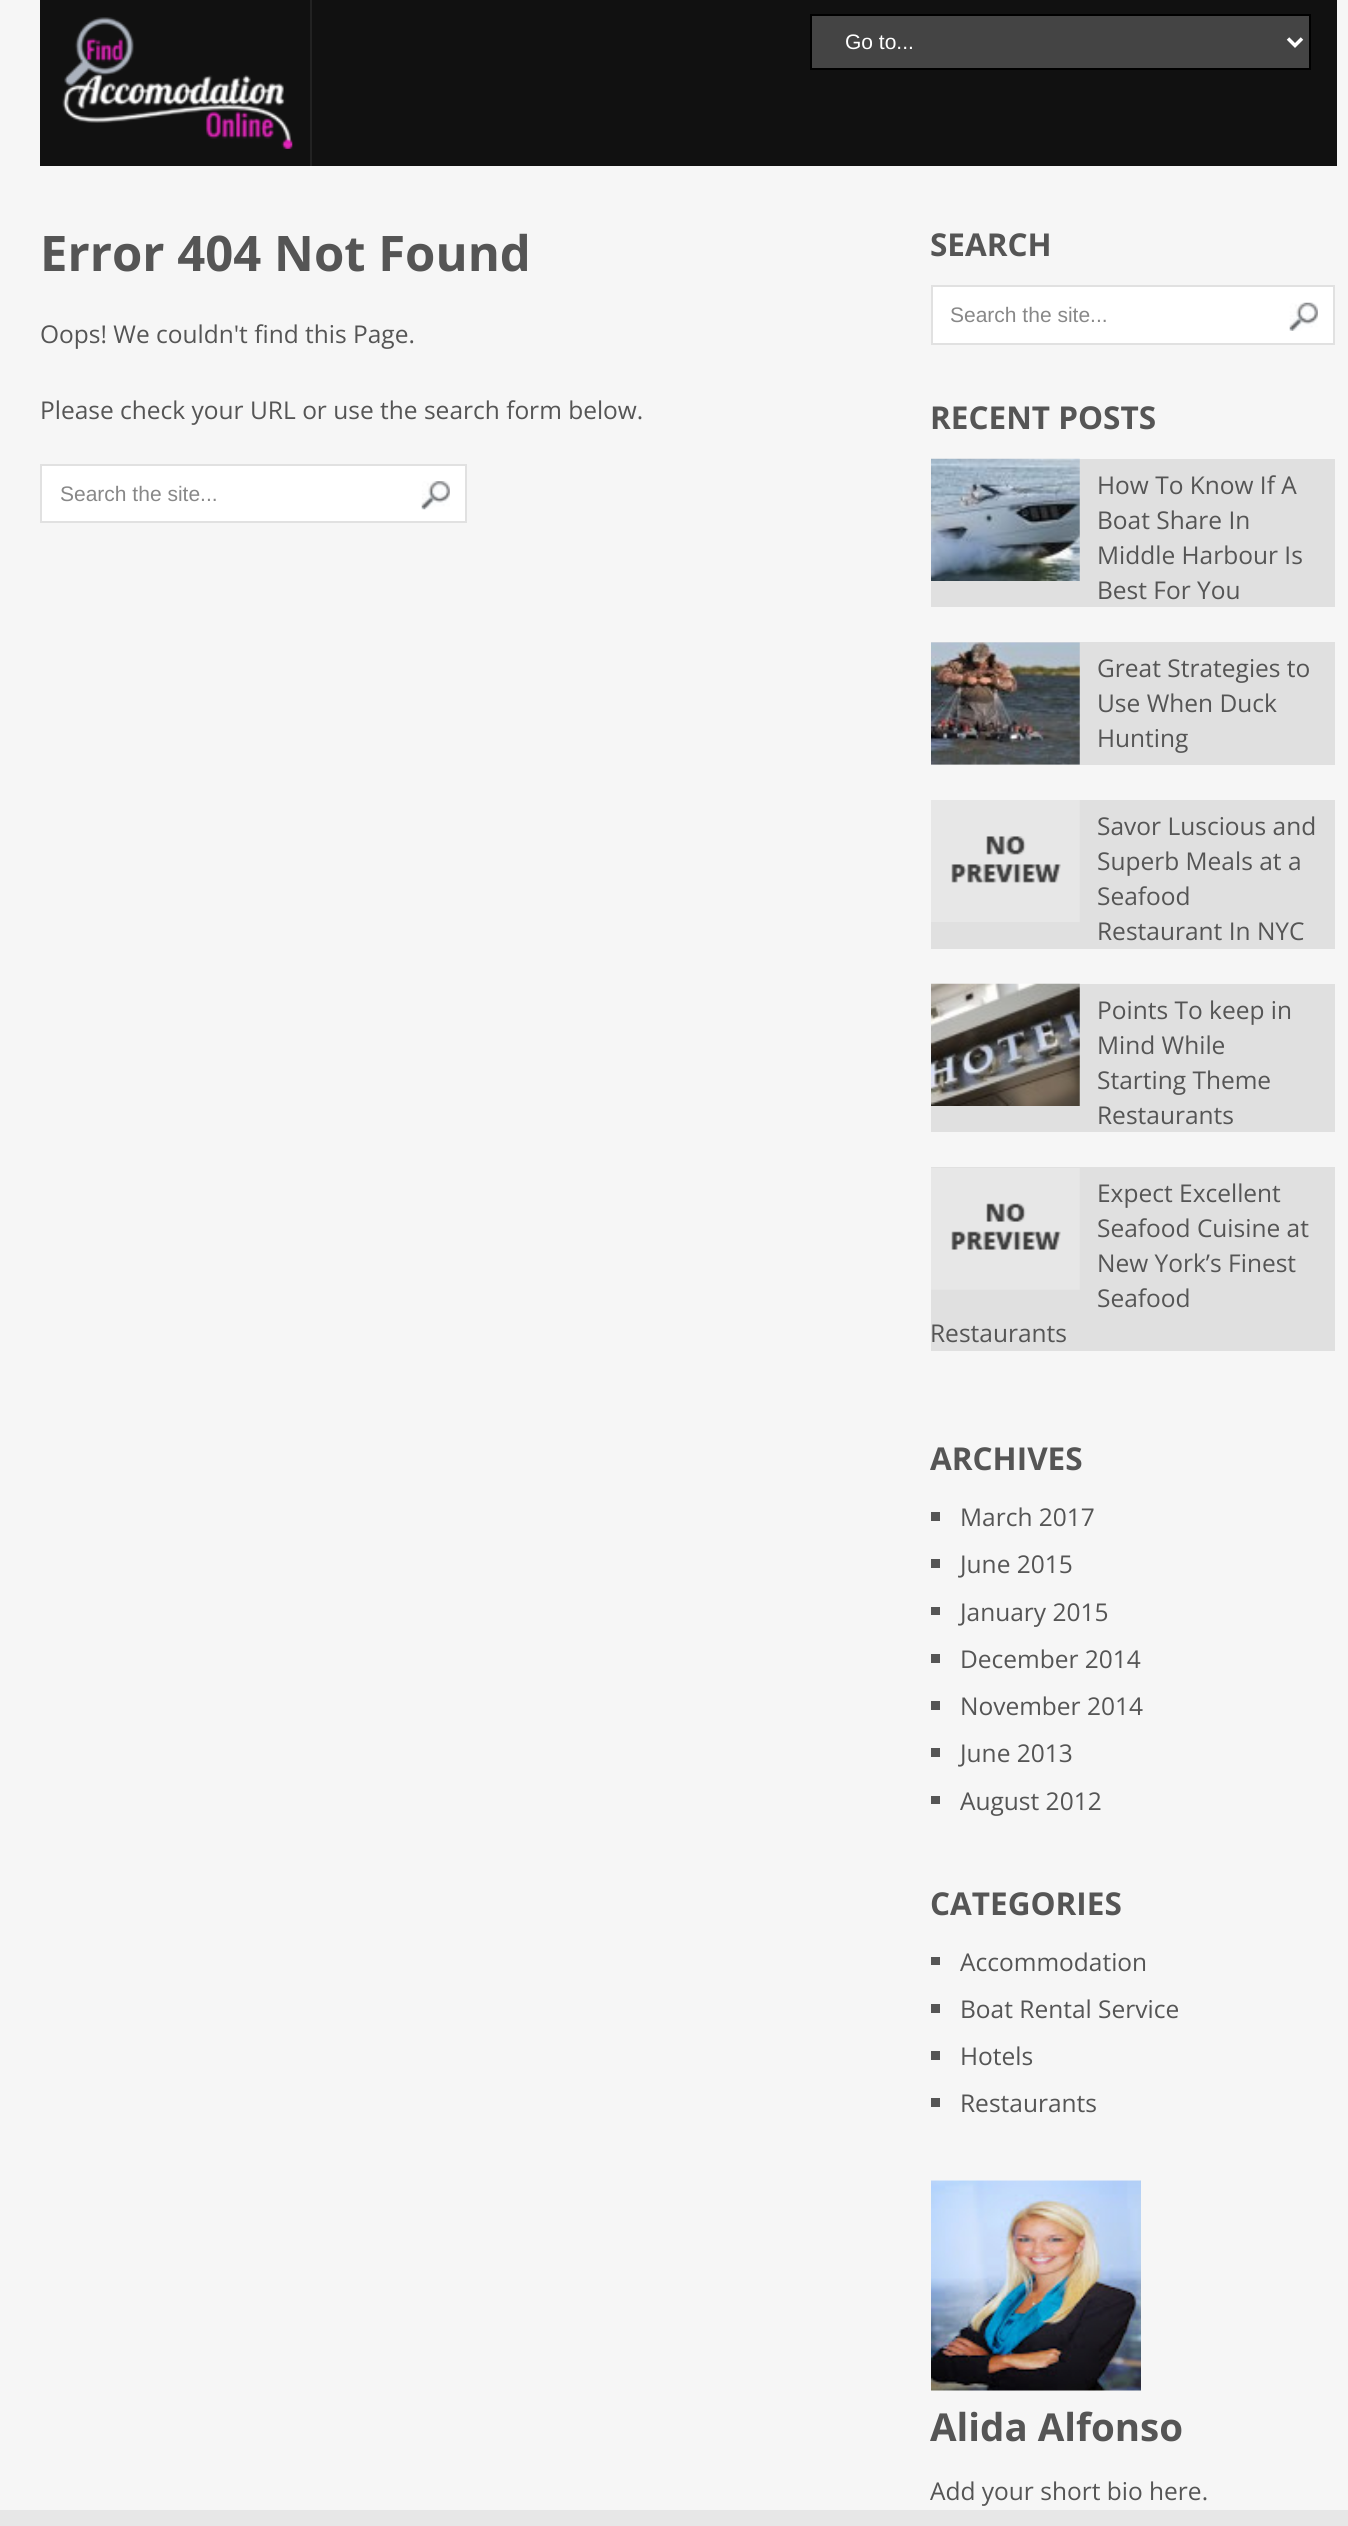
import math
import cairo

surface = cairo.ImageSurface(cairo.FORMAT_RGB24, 1348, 2526)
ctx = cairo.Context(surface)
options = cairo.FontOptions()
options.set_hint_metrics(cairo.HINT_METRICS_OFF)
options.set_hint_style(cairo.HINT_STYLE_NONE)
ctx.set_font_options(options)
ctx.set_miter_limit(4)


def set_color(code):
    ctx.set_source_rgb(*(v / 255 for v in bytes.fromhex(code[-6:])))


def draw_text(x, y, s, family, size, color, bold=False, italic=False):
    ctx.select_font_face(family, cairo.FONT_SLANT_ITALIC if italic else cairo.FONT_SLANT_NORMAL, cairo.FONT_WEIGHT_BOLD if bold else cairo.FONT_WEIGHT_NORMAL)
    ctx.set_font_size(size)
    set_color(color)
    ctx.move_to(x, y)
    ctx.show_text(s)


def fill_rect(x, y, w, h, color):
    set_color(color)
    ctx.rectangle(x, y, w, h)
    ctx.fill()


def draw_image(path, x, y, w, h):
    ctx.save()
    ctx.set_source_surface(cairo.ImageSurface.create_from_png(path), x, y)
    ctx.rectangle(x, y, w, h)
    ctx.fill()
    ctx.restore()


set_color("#f6f6f6")
ctx.paint()
fill_rect(40, 0, 1297, 166, "#111111")
fill_rect(310, 0, 2, 166, "#222222")
draw_image("assets/img1.png", 62, 17, 231, 132)
set_color("#444444")
ctx.rectangle(811, 15, 499, 54)
ctx.fill_preserve()
set_color("#000000")
ctx.stroke()
ctx.new_path()
ctx.move_to(1288, 38.5)
ctx.line_to(1295, 45.5)
ctx.line_to(1302, 38.5)
set_color("#ffffff")
ctx.set_line_width(3.5)
ctx.stroke()
draw_text(845, 49, "Go to...", "Liberation Sans", 21, "#ffffff")
draw_text(40, 271, "Error 404 Not Found", "Open Sans", 49, "#555555", bold=True)
draw_text(40, 343, "Oops! We couldn't find this Page.", "Open Sans", 24.5, "#555555")
draw_text(40, 419, "Please check your URL or use the search form below.", "Open Sans", 24.5, "#555555")
fill_rect(42, 466, 423, 55, "#ffffff")
draw_image("assets/img2.png", 421, 481, 29, 29)
ctx.rectangle(41, 465, 425, 57)
set_color("#e1e1e1")
ctx.set_line_width(2)
ctx.stroke()
draw_text(60, 501, "Search the site...", "Liberation Sans", 21, "#888888")
draw_text(930, 256, "SEARCH", "Open Sans", 31.5, "#555555", bold=True)
fill_rect(933, 287, 400, 56, "#ffffff")
draw_image("assets/img3.png", 1289, 302, 29, 29)
ctx.rectangle(932, 286, 402, 58)
set_color("#e1e1e1")
ctx.stroke()
draw_text(950, 322, "Search the site...", "Liberation Sans", 21, "#888888")
draw_text(930, 429, "RECENT POSTS", "Open Sans", 31.5, "#555555", bold=True)
fill_rect(931, 459, 404, 148, "#e0e0e0")
draw_image("assets/img4.png", 931, 458, 149, 123)
draw_text(1097, 494, "How To Know If A", "Open Sans", 24.5, "#555555")
draw_text(1097, 529, "Boat Share In", "Open Sans", 24.5, "#555555")
draw_text(1097, 564, "Middle Harbour Is", "Open Sans", 24.5, "#555555")
draw_text(1097, 599, "Best For You", "Open Sans", 24.5, "#555555")
fill_rect(931, 642, 404, 123, "#e0e0e0")
draw_image("assets/img5.png", 931, 642, 149, 123)
draw_text(1097, 677, "Great Strategies to", "Open Sans", 24.5, "#555555")
draw_text(1097, 712, "Use When Duck", "Open Sans", 24.5, "#555555")
draw_text(1097, 747, "Hunting", "Open Sans", 24.5, "#555555")
fill_rect(931, 800, 404, 149, "#e0e0e0")
draw_image("assets/img6.png", 931, 800, 149, 122)
draw_text(1097, 835, "Savor Luscious and", "Open Sans", 24.5, "#555555")
draw_text(1097, 870, "Superb Meals at a", "Open Sans", 24.5, "#555555")
draw_text(1097, 905, "Seafood", "Open Sans", 24.5, "#555555")
draw_text(1097, 940, "Restaurant In NYC", "Open Sans", 24.5, "#555555")
fill_rect(931, 984, 404, 148, "#e0e0e0")
draw_image("assets/img7.png", 931, 983, 149, 123)
draw_text(1097, 1019, "Points To keep in", "Open Sans", 24.5, "#555555")
draw_text(1097, 1054, "Mind While", "Open Sans", 24.5, "#555555")
draw_text(1097, 1089, "Starting Theme", "Open Sans", 24.5, "#555555")
draw_text(1097, 1124, "Restaurants", "Open Sans", 24.5, "#555555")
fill_rect(931, 1167, 404, 184, "#e0e0e0")
draw_image("assets/img8.png", 931, 1168, 149, 122)
draw_text(1097, 1202, "Expect Excellent", "Open Sans", 24.5, "#555555")
draw_text(1097, 1237, "Seafood Cuisine at", "Open Sans", 24.5, "#555555")
draw_text(1097, 1272, "New York’s Finest", "Open Sans", 24.5, "#555555")
draw_text(1097, 1307, "Seafood", "Open Sans", 24.5, "#555555")
draw_text(930, 1342, "Restaurants", "Open Sans", 24.5, "#555555")
draw_text(930, 1470, "ARCHIVES", "Open Sans", 31.5, "#555555", bold=True)
fill_rect(931, 1512, 9, 9, "#555555")
draw_text(960, 1526, "March 2017", "Open Sans", 24.5, "#555555")
fill_rect(931, 1559, 9, 9, "#555555")
draw_text(960, 1573, "June 2015", "Open Sans", 24.5, "#555555")
fill_rect(931, 1607, 9, 8, "#555555")
draw_text(960, 1621, "January 2015", "Open Sans", 24.5, "#555555")
fill_rect(931, 1654, 9, 9, "#555555")
draw_text(960, 1668, "December 2014", "Open Sans", 24.5, "#555555")
fill_rect(931, 1701, 9, 9, "#555555")
draw_text(960, 1715, "November 2014", "Open Sans", 24.5, "#555555")
fill_rect(931, 1748, 9, 9, "#555555")
draw_text(960, 1762, "June 2013", "Open Sans", 24.5, "#555555")
fill_rect(931, 1796, 9, 8, "#555555")
draw_text(960, 1810, "August 2012", "Open Sans", 24.5, "#555555")
draw_text(930, 1915, "CATEGORIES", "Open Sans", 31.5, "#555555", bold=True)
fill_rect(931, 1957, 9, 8, "#555555")
draw_text(960, 1971, "Accommodation", "Open Sans", 24.5, "#555555")
fill_rect(931, 2004, 9, 9, "#555555")
draw_text(960, 2018, "Boat Rental Service", "Open Sans", 24.5, "#555555")
fill_rect(931, 2051, 9, 9, "#555555")
draw_text(960, 2065, "Hotels", "Open Sans", 24.5, "#555555")
fill_rect(931, 2098, 9, 9, "#555555")
draw_text(960, 2112, "Restaurants", "Open Sans", 24.5, "#555555")
draw_image("assets/img9.png", 931, 2180, 210, 211)
draw_text(930, 2441, "Alida Alfonso", "Open Sans", 38.5, "#555555", bold=True)
draw_text(930, 2500, "Add your short bio here.", "Open Sans", 24.5, "#555555")
fill_rect(0, 2510, 1348, 16, "#e7e7e7")
surface.write_to_png("output.png")
